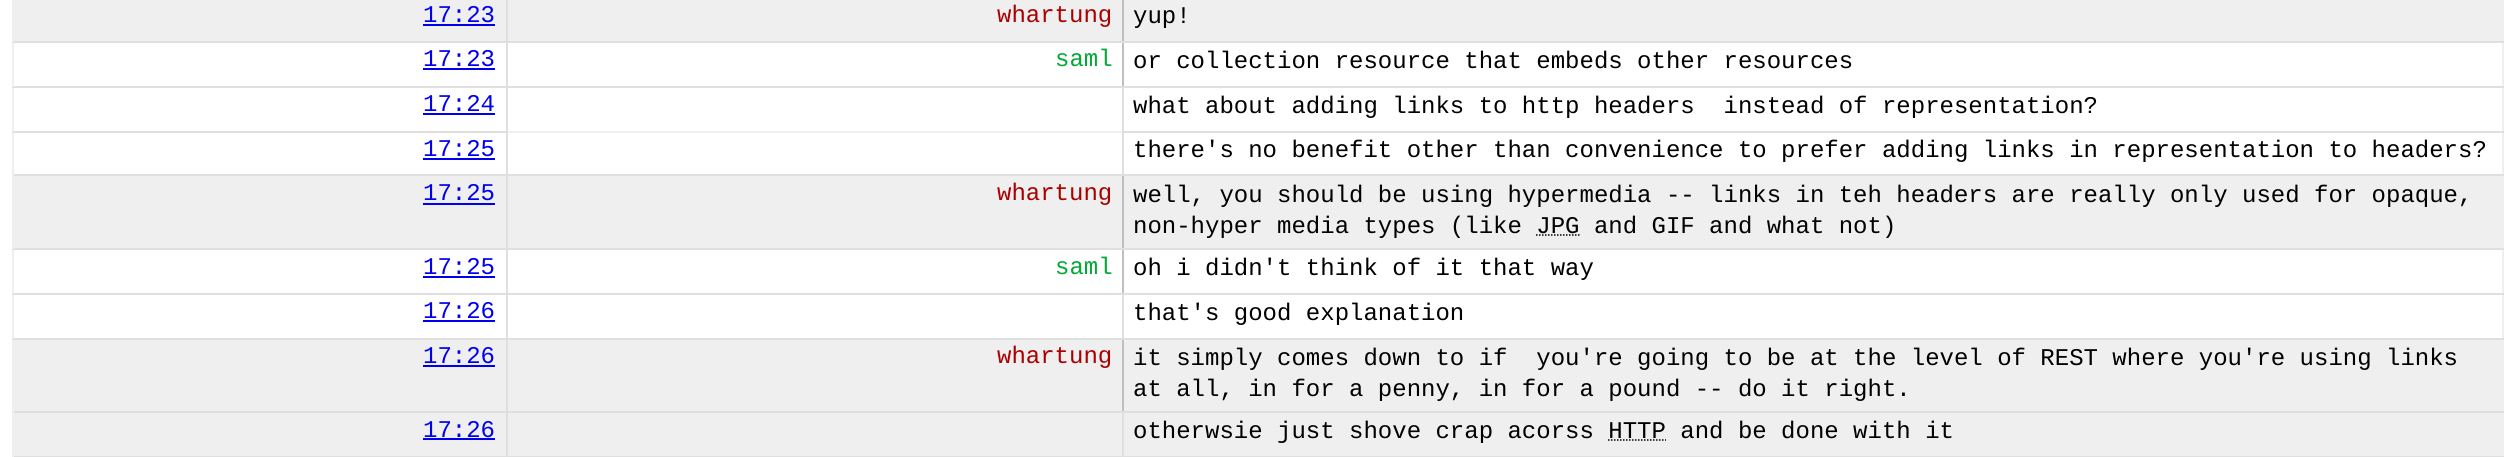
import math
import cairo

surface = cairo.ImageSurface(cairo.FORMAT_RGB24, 2515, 457)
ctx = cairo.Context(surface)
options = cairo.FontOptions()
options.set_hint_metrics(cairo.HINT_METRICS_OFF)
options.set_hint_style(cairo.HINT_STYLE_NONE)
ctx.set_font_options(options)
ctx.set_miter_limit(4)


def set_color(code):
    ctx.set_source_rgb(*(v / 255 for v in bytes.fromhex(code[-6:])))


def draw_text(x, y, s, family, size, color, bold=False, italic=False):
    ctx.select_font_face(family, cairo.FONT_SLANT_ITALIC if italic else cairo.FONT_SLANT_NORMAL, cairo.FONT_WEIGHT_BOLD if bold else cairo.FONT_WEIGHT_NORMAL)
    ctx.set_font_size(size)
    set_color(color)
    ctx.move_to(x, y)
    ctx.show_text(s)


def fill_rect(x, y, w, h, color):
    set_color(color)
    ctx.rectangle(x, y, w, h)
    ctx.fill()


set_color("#ffffff")
ctx.paint()
fill_rect(14, 0, 2488, 41, "#efefef")
fill_rect(506, 174, 618, 2, "#dfdfdf")
fill_rect(14, 176, 2488, 72, "#efefef")
fill_rect(506, 338, 618, 2, "#dfdfdf")
fill_rect(14, 340, 2488, 71, "#efefef")
fill_rect(2502, 0, 2, 457, "#efefef")
fill_rect(14, 413, 2488, 43, "#efefef")
fill_rect(506, 456, 618, 1, "#dfdfdf")
fill_rect(1122, 456, 1382, 1, "#dfdfdf")
fill_rect(1122, 411, 2, 46, "#dfdfdf")
fill_rect(1122, 411, 1382, 2, "#dfdfdf")
fill_rect(1122, 338, 2, 75, "#c0c0c0")
fill_rect(1122, 338, 1382, 2, "#dfdfdf")
fill_rect(1122, 293, 2, 46, "#dfdfdf")
fill_rect(1122, 293, 1382, 2, "#dfdfdf")
fill_rect(1122, 248, 2, 46, "#c0c0c0")
fill_rect(1122, 248, 1382, 2, "#dfdfdf")
fill_rect(1122, 174, 2, 75, "#c0c0c0")
fill_rect(1122, 174, 1382, 2, "#dfdfdf")
fill_rect(1122, 131, 2, 45, "#dfdfdf")
fill_rect(1122, 131, 1382, 2, "#dfdfdf")
fill_rect(1122, 86, 2, 46, "#dfdfdf")
fill_rect(1122, 86, 1382, 2, "#dfdfdf")
fill_rect(1122, 41, 2, 46, "#c0c0c0")
fill_rect(1122, 41, 1382, 2, "#dfdfdf")
fill_rect(1122, 0, 2, 42, "#c0c0c0")
fill_rect(506, 411, 2, 46, "#dfdfdf")
fill_rect(506, 411, 618, 2, "#dfdfdf")
fill_rect(506, 293, 2, 120, "#dfdfdf")
fill_rect(506, 293, 618, 2, "#dfdfdf")
fill_rect(506, 248, 2, 46, "#dfdfdf")
fill_rect(506, 248, 618, 2, "#dfdfdf")
fill_rect(506, 86, 2, 163, "#dfdfdf")
fill_rect(506, 86, 618, 2, "#dfdfdf")
fill_rect(506, 41, 2, 46, "#dfdfdf")
fill_rect(506, 41, 618, 2, "#dfdfdf")
fill_rect(506, 0, 2, 42, "#dfdfdf")
fill_rect(12, 456, 495, 1, "#dfdfdf")
fill_rect(12, 411, 2, 46, "#efefef")
fill_rect(12, 411, 495, 2, "#dfdfdf")
fill_rect(12, 338, 2, 75, "#efefef")
fill_rect(12, 338, 495, 2, "#dfdfdf")
fill_rect(12, 293, 2, 46, "#efefef")
fill_rect(12, 293, 495, 2, "#dfdfdf")
fill_rect(12, 248, 2, 46, "#efefef")
fill_rect(12, 248, 495, 2, "#dfdfdf")
fill_rect(12, 174, 2, 75, "#efefef")
fill_rect(12, 174, 495, 2, "#dfdfdf")
fill_rect(12, 131, 2, 45, "#efefef")
fill_rect(12, 131, 495, 2, "#dfdfdf")
fill_rect(12, 86, 2, 46, "#efefef")
fill_rect(12, 86, 495, 2, "#dfdfdf")
fill_rect(12, 41, 2, 46, "#efefef")
fill_rect(12, 41, 495, 2, "#dfdfdf")
fill_rect(12, 0, 2, 42, "#efefef")
draw_text(423, 22, "17:23", "Liberation Mono", 24, "#0000ee")
fill_rect(423, 24, 72, 2, "#0000ee")
draw_text(997, 22, "whartung", "Liberation Mono", 24, "#aa0000")
draw_text(1133, 23, "yup!", "Liberation Mono", 24, "#000000")
draw_text(423, 66, "17:23", "Liberation Mono", 24, "#0000ee")
fill_rect(423, 68, 72, 2, "#0000ee")
draw_text(1055, 66, "saml", "Liberation Mono", 24, "#00aa33")
draw_text(1133, 68, "or collection resource that embeds other resources", "Liberation Mono", 24, "#000000")
draw_text(423, 111, "17:24", "Liberation Mono", 24, "#0000ee")
fill_rect(423, 113, 72, 2, "#0000ee")
draw_text(1133, 113, "what about adding links to http headers  instead of representation?", "Liberation Mono", 24, "#000000")
fill_rect(508, 131, 614, 2, "#efefef")
draw_text(423, 156, "17:25", "Liberation Mono", 24, "#0000ee")
fill_rect(423, 158, 72, 2, "#0000ee")
draw_text(1133, 157, "there's no benefit other than convenience to prefer adding links in representation to headers?", "Liberation Mono", 24, "#000000")
draw_text(423, 200, "17:25", "Liberation Mono", 24, "#0000ee")
fill_rect(423, 203, 72, 2, "#0000ee")
draw_text(997, 200, "whartung", "Liberation Mono", 24, "#aa0000")
draw_text(1133, 202, "well, you should be using hypermedia -- links in teh headers are really only used for opaque,", "Liberation Mono", 24, "#000000")
draw_text(1133, 233, "non-hyper media types (like JPG and GIF and what not)", "Liberation Mono", 24, "#000000")
ctx.new_path()
ctx.move_to(1536, 235)
ctx.line_to(1579.5, 235)
ctx.set_line_width(1.5)
ctx.set_dash([1.5, 1.5])
ctx.stroke()
draw_text(423, 274, "17:25", "Liberation Mono", 24, "#0000ee")
fill_rect(423, 276, 72, 2, "#0000ee")
draw_text(1055, 274, "saml", "Liberation Mono", 24, "#00aa33")
draw_text(1133, 275, "oh i didn't think of it that way", "Liberation Mono", 24, "#000000")
draw_text(423, 318, "17:26", "Liberation Mono", 24, "#0000ee")
fill_rect(423, 320, 72, 2, "#0000ee")
draw_text(1133, 320, "that's good explanation", "Liberation Mono", 24, "#000000")
draw_text(423, 363, "17:26", "Liberation Mono", 24, "#0000ee")
fill_rect(423, 365, 72, 2, "#0000ee")
draw_text(997, 363, "whartung", "Liberation Mono", 24, "#aa0000")
draw_text(1133, 365, "it simply comes down to if  you're going to be at the level of REST where you're using links", "Liberation Mono", 24, "#000000")
draw_text(1133, 396, "at all, in for a penny, in for a pound -- do it right.", "Liberation Mono", 24, "#000000")
draw_text(423, 437, "17:26", "Liberation Mono", 24, "#0000ee")
fill_rect(423, 438, 72, 2, "#0000ee")
draw_text(1133, 438, "otherwsie just shove crap acorss HTTP and be done with it", "Liberation Mono", 24, "#000000")
ctx.new_path()
ctx.move_to(1608, 440)
ctx.line_to(1666, 440)
ctx.stroke()
surface.write_to_png("output.png")
